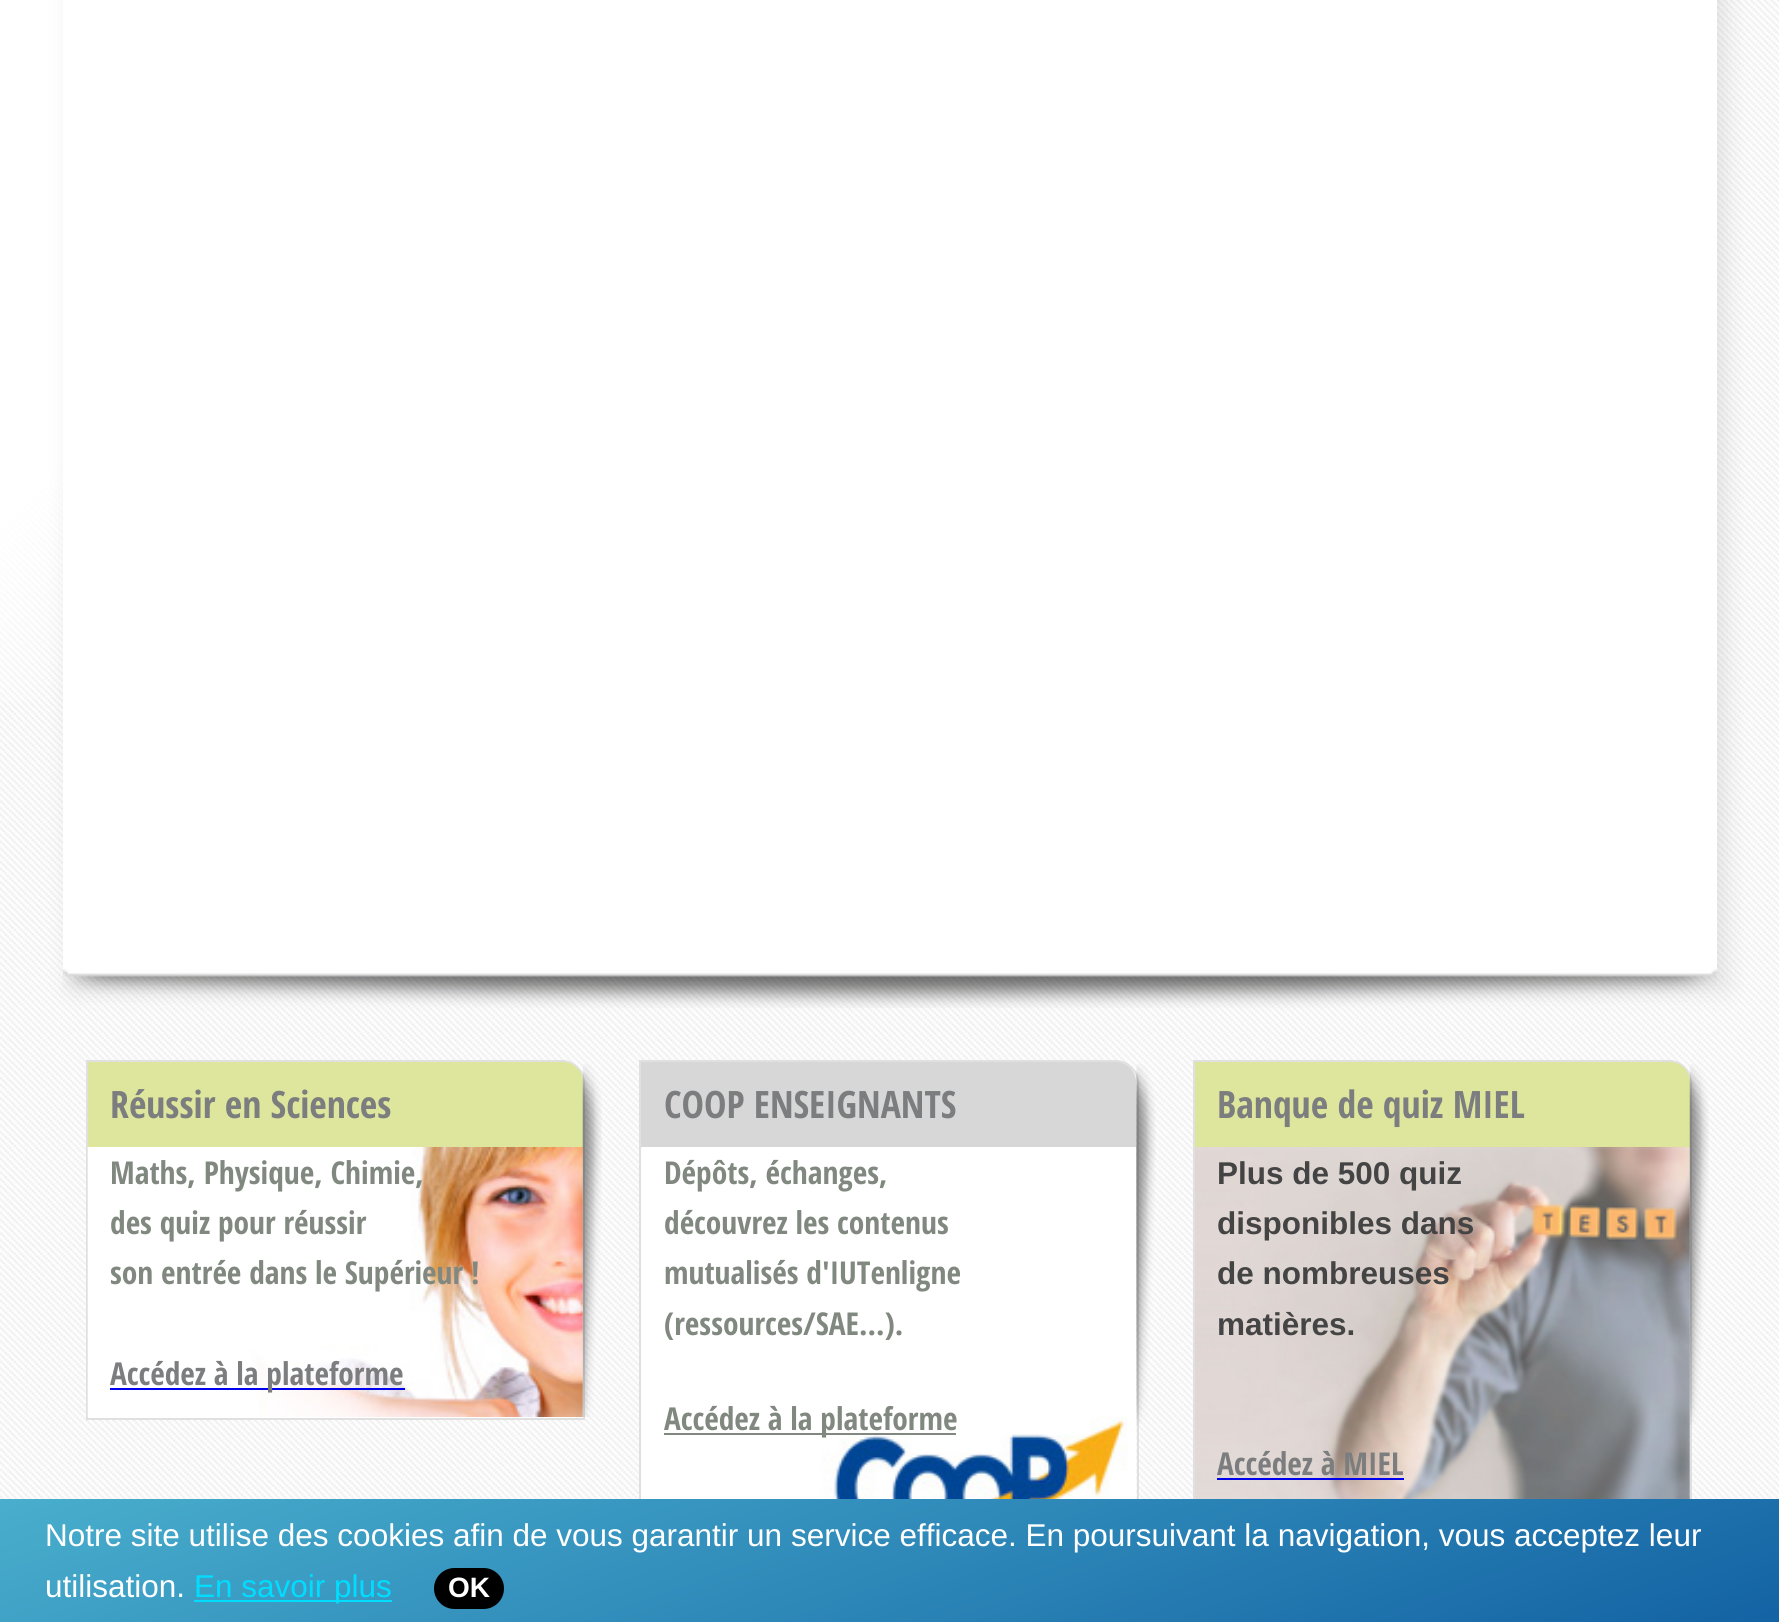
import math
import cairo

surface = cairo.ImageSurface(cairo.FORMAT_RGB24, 1779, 1622)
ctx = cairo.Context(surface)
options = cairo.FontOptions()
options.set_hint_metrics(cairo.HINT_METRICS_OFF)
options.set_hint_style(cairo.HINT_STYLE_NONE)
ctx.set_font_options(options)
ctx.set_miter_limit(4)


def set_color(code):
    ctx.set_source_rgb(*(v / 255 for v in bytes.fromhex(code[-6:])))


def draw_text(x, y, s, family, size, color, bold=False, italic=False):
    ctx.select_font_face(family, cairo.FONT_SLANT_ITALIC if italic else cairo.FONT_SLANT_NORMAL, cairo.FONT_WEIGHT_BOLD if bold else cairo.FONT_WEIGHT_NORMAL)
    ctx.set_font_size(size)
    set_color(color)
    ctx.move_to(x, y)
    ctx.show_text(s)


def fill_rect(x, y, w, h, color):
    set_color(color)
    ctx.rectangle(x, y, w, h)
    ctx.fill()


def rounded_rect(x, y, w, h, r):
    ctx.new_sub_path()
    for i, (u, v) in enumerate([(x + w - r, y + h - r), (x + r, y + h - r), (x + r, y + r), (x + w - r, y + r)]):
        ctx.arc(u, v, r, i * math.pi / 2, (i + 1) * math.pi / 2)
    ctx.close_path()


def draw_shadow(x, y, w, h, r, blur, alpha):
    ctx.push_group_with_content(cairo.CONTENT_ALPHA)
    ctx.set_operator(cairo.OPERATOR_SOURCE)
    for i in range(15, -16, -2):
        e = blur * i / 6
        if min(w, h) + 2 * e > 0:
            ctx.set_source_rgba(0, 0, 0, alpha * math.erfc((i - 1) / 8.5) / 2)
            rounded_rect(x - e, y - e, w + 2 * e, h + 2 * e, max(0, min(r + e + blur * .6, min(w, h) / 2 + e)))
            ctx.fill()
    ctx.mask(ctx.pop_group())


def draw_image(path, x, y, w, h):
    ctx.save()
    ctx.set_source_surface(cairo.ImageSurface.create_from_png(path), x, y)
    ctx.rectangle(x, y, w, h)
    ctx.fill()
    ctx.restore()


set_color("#ffffff")
ctx.paint()
draw_image("assets/img1.png", 0, 0, 1779, 1499)
draw_image("assets/img2.png", 0, 0, 63, 701)
set_color("#000000")
draw_shadow(72, -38, 1654, 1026, 0, 12.5, 0.1)
fill_rect(63, 0, 1654, 970, "#ffffff")
draw_image("assets/img3.png", 63, 969, 1654, 39)
ctx.new_path()
ctx.move_to(87, 1061)
ctx.line_to(562, 1061)
ctx.curve_to(574, 1061, 584, 1071, 584, 1083)
ctx.line_to(584, 1419)
ctx.line_to(87, 1419)
ctx.close_path()
set_color("#e0e0e0")
ctx.stroke()
set_color("#dee69d")
ctx.new_path()
ctx.move_to(88, 1062)
ctx.line_to(563, 1062)
ctx.curve_to(574, 1062, 583, 1071, 583, 1082)
ctx.line_to(583, 1148)
ctx.line_to(88, 1148)
ctx.close_path()
ctx.fill()
draw_text(110, 1118, "Réussir en Sciences", "Open Sans Condensed", 37.75, "#7c7d7f", bold=True)
fill_rect(88, 1148, 495, 270, "#ffffff")
draw_image("assets/img5.png", 87, 1147, 496, 270)
draw_image("assets/img4.png", 582, 1064, 20, 353)
draw_text(110, 1184, "Maths, Physique, Chimie,", "Open Sans Condensed", 31.5, "#808880", bold=True)
draw_text(110, 1234, "des quiz pour réussir", "Open Sans Condensed", 31.5, "#808880", bold=True)
draw_text(110, 1284, "son entrée dans le Supérieur !", "Open Sans Condensed", 31.5, "#808880", bold=True)
fill_rect(110, 1388, 295, 2, "#0000ee")
draw_text(110, 1385, "Accédez à la plateforme", "Open Sans Condensed", 31.5, "#7c7d7f", bold=True)
ctx.new_path()
ctx.move_to(640, 1061)
ctx.line_to(1116, 1061)
ctx.curve_to(1128, 1061, 1138, 1071, 1138, 1083)
ctx.line_to(1138, 1599)
ctx.line_to(640, 1599)
ctx.close_path()
set_color("#e0e0e0")
ctx.stroke()
set_color("#d7d7d7")
ctx.new_path()
ctx.move_to(641, 1062)
ctx.line_to(1116, 1062)
ctx.curve_to(1127, 1062, 1136, 1071, 1136, 1082)
ctx.line_to(1136, 1148)
ctx.line_to(641, 1148)
ctx.close_path()
ctx.fill()
draw_text(664, 1118, "COOP ENSEIGNANTS", "Open Sans Condensed", 37.75, "#7c7d7f", bold=True)
draw_image("assets/img6.png", 1136, 1064, 20, 361)
draw_image("assets/img7.png", 641, 1147, 495, 352)
draw_text(664, 1184, "Dépôts, échanges,", "Open Sans Condensed", 31.5, "#808880", bold=True)
draw_text(664, 1234, "découvrez les contenus", "Open Sans Condensed", 31.5, "#808880", bold=True)
draw_text(664, 1284, "mutualisés d'IUTenligne", "Open Sans Condensed", 31.5, "#808880", bold=True)
draw_text(664, 1335, "(ressources/SAE...).", "Open Sans Condensed", 31.5, "#808880", bold=True)
fill_rect(664, 1433, 292, 2, "#808880")
draw_text(664, 1430, "Accédez à la plateforme", "Open Sans Condensed", 31.5, "#808880", bold=True)
ctx.new_path()
ctx.move_to(1194, 1061)
ctx.line_to(1669, 1061)
ctx.curve_to(1681, 1061, 1691, 1071, 1691, 1083)
ctx.line_to(1691, 1509)
ctx.line_to(1194, 1509)
ctx.close_path()
set_color("#e0e0e0")
ctx.stroke()
set_color("#dee69d")
ctx.new_path()
ctx.move_to(1195, 1062)
ctx.line_to(1670, 1062)
ctx.curve_to(1681, 1062, 1690, 1071, 1690, 1082)
ctx.line_to(1690, 1148)
ctx.line_to(1195, 1148)
ctx.close_path()
ctx.fill()
draw_text(1217, 1118, "Banque de quiz MIEL", "Open Sans Condensed", 37.75, "#7c7d7f", bold=True)
draw_image("assets/img9.png", 1195, 1147, 495, 352)
draw_image("assets/img8.png", 1689, 1064, 20, 361)
draw_text(1217, 1184, "Plus de 500 quiz", "Liberation Sans", 31.5, "#444444", bold=True)
draw_text(1217, 1234, "disponibles dans", "Liberation Sans", 31.5, "#444444", bold=True)
draw_text(1217, 1284, "de nombreuses", "Liberation Sans", 31.5, "#444444", bold=True)
draw_text(1217, 1335, "matières.", "Liberation Sans", 31.5, "#444444", bold=True)
draw_text(1217, 1475, "Accédez à MIEL", "Open Sans Condensed", 31.5, "#7c7d7f", bold=True)
fill_rect(1217, 1478, 187, 2, "#0000ee")
gradient = cairo.LinearGradient(806, 1205, 1064, 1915)
gradient.add_color_stop_rgba(0, 0.286, 0.686, 0.804, 1)
gradient.add_color_stop_rgba(1, 0.067, 0.373, 0.635, 1)
ctx.set_source(gradient)
ctx.rectangle(0, 1499, 1779, 123)
ctx.fill()
draw_text(45, 1546, "Notre site utilise des cookies afin de vous garantir un service efficace. En poursuivant la navigation, vous acceptez leur", "Liberation Sans", 31.5, "#ffffff")
draw_text(45, 1597, "utilisation.", "Liberation Sans", 31.5, "#ffffff")
fill_rect(194, 1600, 198, 2, "#00ddfe")
draw_text(194, 1597, "En savoir plus", "Liberation Sans", 31.5, "#00ddfe")
set_color("#000000")
rounded_rect(434, 1568, 70, 41, 20.5)
ctx.fill()
draw_text(448, 1597, "OK", "Liberation Sans", 28, "#ffffff", bold=True)
surface.write_to_png("output.png")
